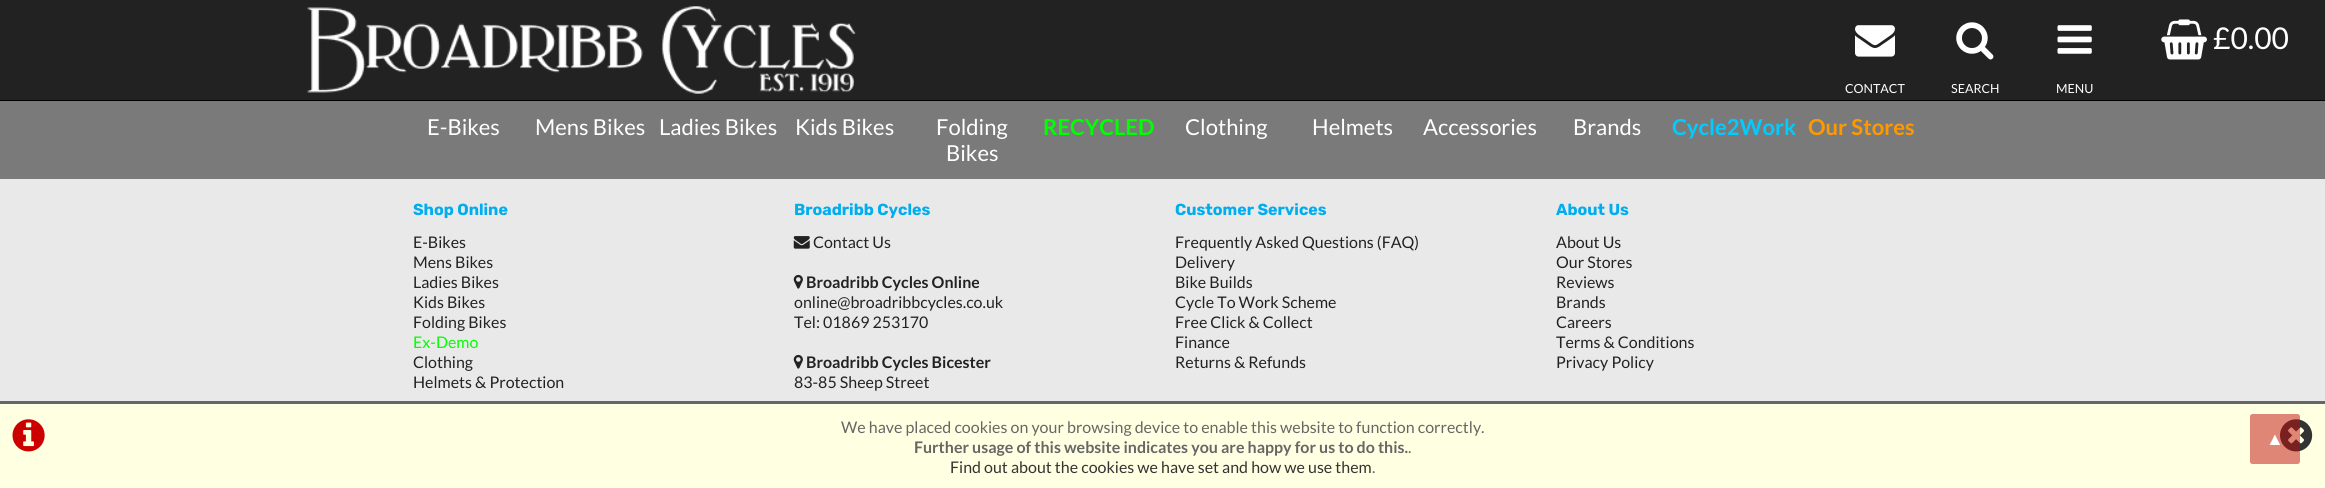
import math
import cairo

surface = cairo.ImageSurface(cairo.FORMAT_RGB24, 2325, 488)
ctx = cairo.Context(surface)
options = cairo.FontOptions()
options.set_hint_metrics(cairo.HINT_METRICS_OFF)
options.set_hint_style(cairo.HINT_STYLE_NONE)
ctx.set_font_options(options)
ctx.set_miter_limit(4)


def set_color(code):
    ctx.set_source_rgb(*(v / 255 for v in bytes.fromhex(code[-6:])))


def draw_text(x, y, s, family, size, color, bold=False, italic=False):
    ctx.select_font_face(family, cairo.FONT_SLANT_ITALIC if italic else cairo.FONT_SLANT_NORMAL, cairo.FONT_WEIGHT_BOLD if bold else cairo.FONT_WEIGHT_NORMAL)
    ctx.set_font_size(size)
    set_color(color)
    ctx.move_to(x, y)
    ctx.show_text(s)


def fill_rect(x, y, w, h, color):
    set_color(color)
    ctx.rectangle(x, y, w, h)
    ctx.fill()


def rounded_rect(x, y, w, h, r):
    ctx.new_sub_path()
    for i, (u, v) in enumerate([(x + w - r, y + h - r), (x + r, y + h - r), (x + r, y + r), (x + w - r, y + r)]):
        ctx.arc(u, v, r, i * math.pi / 2, (i + 1) * math.pi / 2)
    ctx.close_path()


def draw_image(path, x, y, w, h):
    ctx.save()
    ctx.set_source_surface(cairo.ImageSurface.create_from_png(path), x, y)
    ctx.rectangle(x, y, w, h)
    ctx.fill()
    ctx.restore()


set_color("#e9e9e9")
ctx.paint()
fill_rect(0, 0, 2325, 100, "#212221")
fill_rect(0, 100, 2325, 1, "#000000")
draw_image("assets/img1.png", 307, 6, 549, 88)
draw_image("assets/img2.png", 2161, 19, 46, 41)
draw_text(2213, 49, "£0.00", "Lato", 30, "#ffffff")
draw_image("assets/img3.png", 1855, 25, 40, 32)
draw_text(1845, 93, "CONTACT", "Lato", 12.5, "#ffffff")
draw_image("assets/img4.png", 1956, 22, 38, 38)
draw_text(1951, 93, "SEARCH", "Lato", 12.5, "#ffffff")
draw_image("assets/img5.png", 2057, 25, 35, 29)
draw_text(2056, 93, "MENU", "Lato", 12.5, "#ffffff")
fill_rect(0, 101, 2325, 78, "#7a7a7a")
draw_text(427, 135, "E-Bikes", "Lato", 22, "#ffffff")
draw_text(535, 135, "Mens Bikes", "Lato", 22, "#ffffff")
draw_text(659, 135, "Ladies Bikes", "Lato", 22, "#ffffff")
draw_text(795, 135, "Kids Bikes", "Lato", 22, "#ffffff")
draw_text(936, 135, "Folding", "Lato", 22, "#ffffff")
draw_text(946, 161, "Bikes", "Lato", 22, "#ffffff")
draw_text(1043, 135, "RECYCLED", "Lato", 22, "#00ff00", bold=True)
draw_text(1185, 135, "Clothing", "Lato", 22, "#ffffff")
draw_text(1312, 135, "Helmets", "Lato", 22, "#ffffff")
draw_text(1423, 135, "Accessories", "Lato", 22, "#ffffff")
draw_text(1573, 135, "Brands", "Lato", 22, "#ffffff")
draw_text(1672, 135, "Cycle2Work", "Lato", 22, "#00ccff", bold=True)
draw_text(1808, 135, "Our Stores", "Lato", 22, "#ff9900", bold=True)
fill_rect(0, 404, 2325, 84, "#ffffe1")
draw_image("assets/img9.png", 2280, 419, 33, 33)
ctx.set_source_rgba(0.753, 0.055, 0.055, 0.5)
rounded_rect(2250, 414, 50, 50, 2.5)
ctx.fill()
draw_text(2266, 445, "▲", "Liberation Sans", 18, "#ffffff")
draw_text(413, 215, "Shop Online", "Rubik", 16, "#00adef", bold=True)
draw_text(413, 248, "E-Bikes", "Lato", 16, "#212221")
draw_text(413, 268, "Mens Bikes", "Lato", 16, "#212221")
draw_text(413, 288, "Ladies Bikes", "Lato", 16, "#212221")
draw_text(413, 308, "Kids Bikes", "Lato", 16, "#212221")
draw_text(413, 328, "Folding Bikes", "Lato", 16, "#212221")
draw_text(413, 348, "Ex-Demo", "Lato", 16, "#00ff00")
draw_text(413, 368, "Clothing", "Lato", 16, "#212221")
draw_text(413, 388, "Helmets & Protection", "Lato", 16, "#212221")
draw_text(794, 215, "Broadribb Cycles", "Rubik", 16, "#00adef", bold=True)
draw_image("assets/img6.png", 793, 236, 17, 13)
draw_text(813, 248, "Contact Us", "Lato", 16, "#212221")
draw_image("assets/img7.png", 793, 274, 10, 15)
draw_text(806, 288, "Broadribb Cycles Online", "Lato", 16, "#212221", bold=True)
draw_text(794, 308, "online@broadribbcycles.co.uk", "Lato", 16, "#212221")
draw_text(794, 328, "Tel: 01869 253170", "Lato", 16, "#212221")
draw_image("assets/img7.png", 793, 354, 10, 15)
draw_text(806, 368, "Broadribb Cycles Bicester", "Lato", 16, "#212221", bold=True)
draw_text(794, 388, "83-85 Sheep Street", "Lato", 16, "#212221")
draw_text(1175, 215, "Customer Services", "Rubik", 16, "#00adef", bold=True)
draw_text(1175, 248, "Frequently Asked Questions (FAQ)", "Lato", 16, "#212221")
draw_text(1175, 268, "Delivery", "Lato", 16, "#212221")
draw_text(1175, 288, "Bike Builds", "Lato", 16, "#212221")
draw_text(1175, 308, "Cycle To Work Scheme", "Lato", 16, "#212221")
draw_text(1175, 328, "Free Click & Collect", "Lato", 16, "#212221")
draw_text(1175, 348, "Finance", "Lato", 16, "#212221")
draw_text(1175, 368, "Returns & Refunds", "Lato", 16, "#212221")
draw_text(1556, 215, "About Us", "Rubik", 16, "#00adef", bold=True)
draw_text(1556, 248, "About Us", "Lato", 16, "#212221")
draw_text(1556, 268, "Our Stores", "Lato", 16, "#212221")
draw_text(1556, 288, "Reviews", "Lato", 16, "#212221")
draw_text(1556, 308, "Brands", "Lato", 16, "#212221")
draw_text(1556, 328, "Careers", "Lato", 16, "#212221")
draw_text(1556, 348, "Terms & Conditions", "Lato", 16, "#212221")
draw_text(1556, 368, "Privacy Policy", "Lato", 16, "#212221")
fill_rect(0, 401, 2325, 3, "#666666")
draw_image("assets/img8.png", 12, 419, 33, 33)
draw_text(841, 433, "We have placed cookies on your browsing device to enable this website to function correctly.", "Lato", 16, "#666666")
draw_text(914, 453, "Further usage of this website indicates you are happy for us to do this.", "Lato", 16, "#666666", bold=True)
draw_text(1408, 453, ".", "Lato", 16, "#666666")
draw_text(950, 473, "Find out about the cookies we have set and how we use them", "Lato", 16, "#333333")
draw_text(1372, 473, ".", "Lato", 16, "#666666")
surface.write_to_png("output.png")
